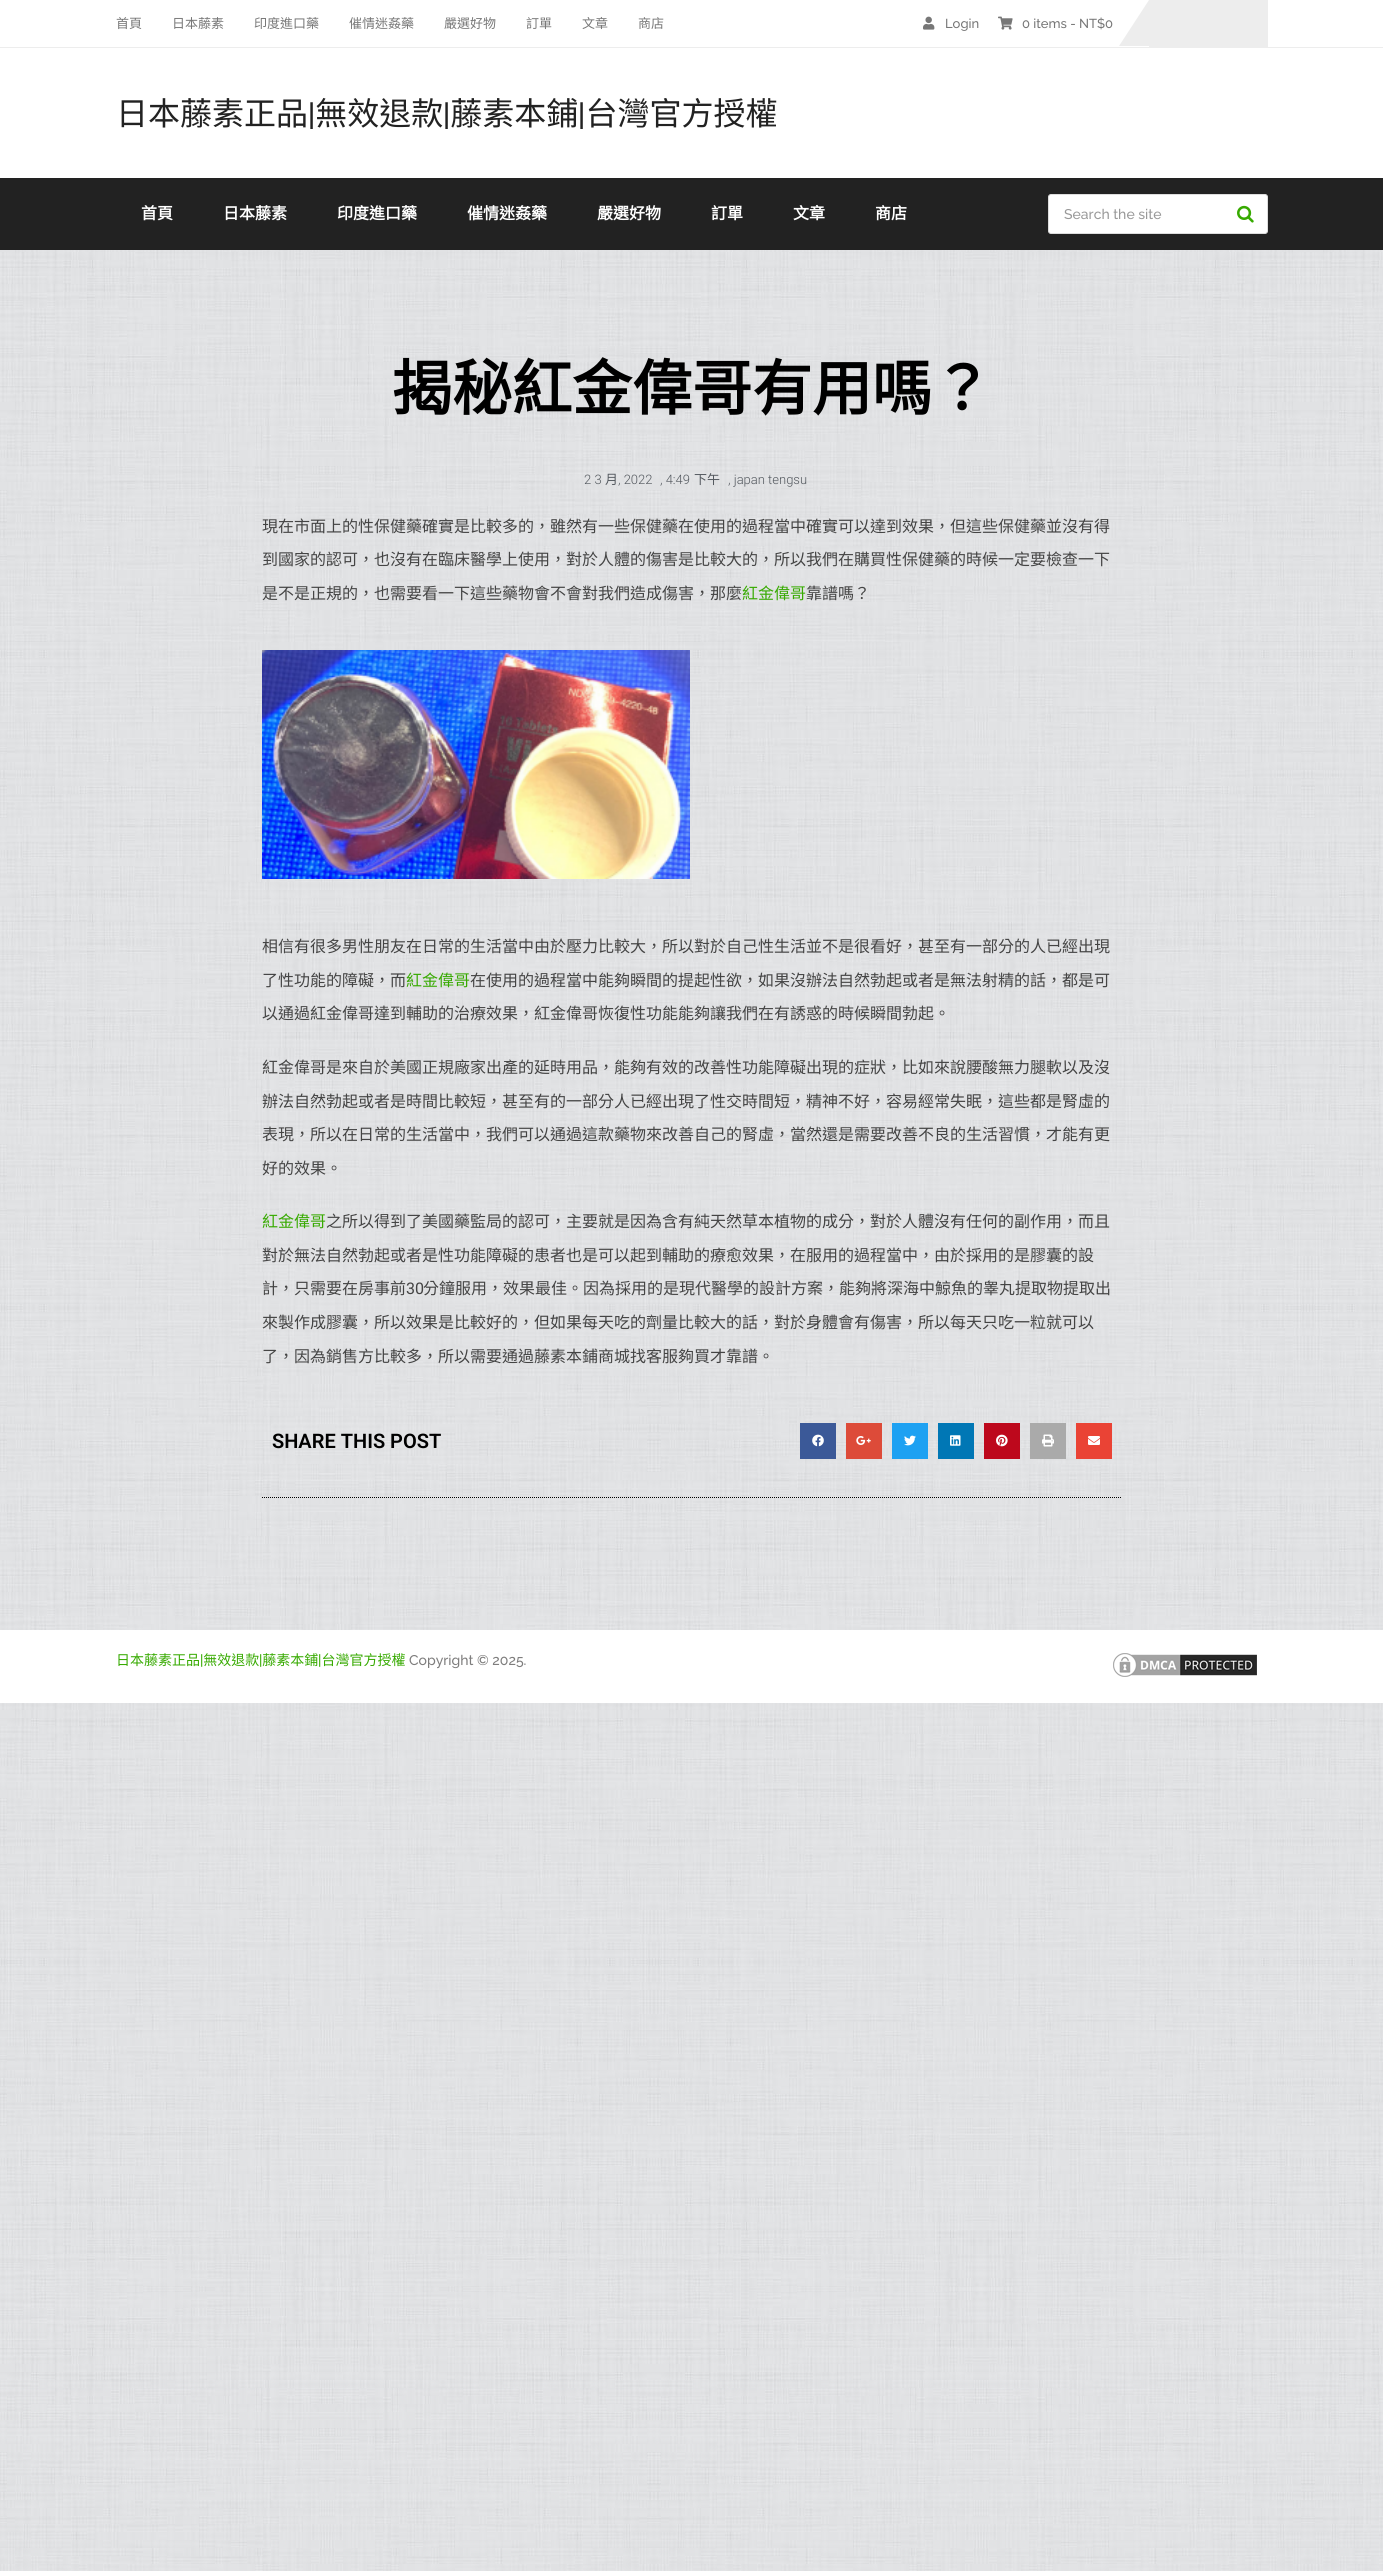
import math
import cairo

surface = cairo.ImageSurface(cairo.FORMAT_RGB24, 1383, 2571)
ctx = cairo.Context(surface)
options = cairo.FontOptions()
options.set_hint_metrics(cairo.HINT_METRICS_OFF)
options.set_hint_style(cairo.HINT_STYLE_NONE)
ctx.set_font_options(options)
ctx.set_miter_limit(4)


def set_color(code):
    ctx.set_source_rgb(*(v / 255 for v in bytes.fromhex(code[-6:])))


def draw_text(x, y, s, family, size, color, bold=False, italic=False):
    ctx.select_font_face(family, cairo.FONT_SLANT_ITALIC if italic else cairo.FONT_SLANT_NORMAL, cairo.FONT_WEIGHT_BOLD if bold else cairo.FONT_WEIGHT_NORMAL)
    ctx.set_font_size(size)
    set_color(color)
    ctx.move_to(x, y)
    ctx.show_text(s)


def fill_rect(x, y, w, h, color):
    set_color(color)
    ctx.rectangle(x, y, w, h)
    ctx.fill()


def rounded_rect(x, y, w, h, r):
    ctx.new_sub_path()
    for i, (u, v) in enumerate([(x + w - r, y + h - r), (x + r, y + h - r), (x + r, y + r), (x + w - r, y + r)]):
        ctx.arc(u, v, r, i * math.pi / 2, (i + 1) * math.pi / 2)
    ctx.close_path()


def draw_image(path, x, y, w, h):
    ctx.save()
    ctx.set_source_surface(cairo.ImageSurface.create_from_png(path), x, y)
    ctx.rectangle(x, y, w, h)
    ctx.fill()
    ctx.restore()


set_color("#ffffff")
ctx.paint()
draw_image("assets/img1.png", 0, 250, 1383, 2321)
fill_rect(0, 47, 1383, 1, "#ededed")
draw_text(116, 28, "首頁", "Noto Sans CJK TC", 13, "#777777")
draw_text(172, 28, "日本藤素", "Noto Sans CJK TC", 13, "#777777")
draw_text(254, 28, "印度進口藥", "Noto Sans CJK TC", 13, "#777777")
draw_text(349, 28, "催情迷姦藥", "Noto Sans CJK TC", 13, "#777777")
draw_text(444, 28, "嚴選好物", "Noto Sans CJK TC", 13, "#777777")
draw_text(526, 28, "訂單", "Noto Sans CJK TC", 13, "#777777")
draw_text(582, 28, "文章", "Noto Sans CJK TC", 13, "#777777")
draw_text(638, 28, "商店", "Noto Sans CJK TC", 13, "#777777")
draw_image("assets/img2.png", 923, 16, 12, 14)
draw_text(945, 28, "Login", "Raleway Medium", 13, "#777777")
draw_image("assets/img3.png", 998, 16, 15, 14)
draw_text(1022, 28, "0 items - NT$0", "Raleway Medium", 13, "#777777")
fill_rect(1149, 0, 119, 47, "#ededed")
ctx.new_path()
ctx.move_to(1149, 0)
ctx.line_to(1149, 46)
ctx.line_to(1119, 46)
ctx.close_path()
ctx.fill()
draw_text(116, 125, "日本藤素正品 無效退款 藤素本鋪 台灣官方授權", "Noto Sans CJK TC", 32, "#222222")
ctx.save()
ctx.rectangle(116, 97, 661, 32)
ctx.clip()
draw_text(308, 125, "|", "Roboto Slab", 32, "#222222")
draw_text(443, 125, "|", "Roboto Slab", 32, "#222222")
draw_text(578, 125, "|", "Roboto Slab", 32, "#222222")
ctx.restore()
fill_rect(0, 178, 1383, 72, "#222222")
draw_text(141, 219, "首頁", "Noto Sans CJK TC", 16, "#ffffff", bold=True)
draw_text(223, 219, "日本藤素", "Noto Sans CJK TC", 16, "#ffffff", bold=True)
draw_text(337, 219, "印度進口藥", "Noto Sans CJK TC", 16, "#ffffff", bold=True)
draw_text(467, 219, "催情迷姦藥", "Noto Sans CJK TC", 16, "#ffffff", bold=True)
draw_text(597, 219, "嚴選好物", "Noto Sans CJK TC", 16, "#ffffff", bold=True)
draw_text(711, 219, "訂單", "Noto Sans CJK TC", 16, "#ffffff", bold=True)
draw_text(793, 219, "文章", "Noto Sans CJK TC", 16, "#ffffff", bold=True)
draw_text(875, 219, "商店", "Noto Sans CJK TC", 16, "#ffffff", bold=True)
rounded_rect(1048.5, 194.5, 219, 39, 2.5)
ctx.fill_preserve()
set_color("#dddddd")
ctx.set_line_width(1)
ctx.stroke()
draw_text(1064, 219, "Search the site", "Raleway Medium", 14, "#999999")
draw_image("assets/img4.png", 1237, 205, 17, 18)
draw_text(392, 410, "揭秘紅金偉哥有用嗎？", "Noto Sans CJK TC", 60, "#000000", bold=True)
draw_text(584, 484, "2 3", "Roboto Light", 13, "#54595f")
draw_text(605, 484, "月", "Noto Sans CJK TC", 13, "#54595f")
draw_text(618, 484, ", 2022", "Roboto Light", 13, "#54595f")
draw_text(660, 484, ", 4:49", "Roboto Light", 13, "#54595f")
draw_text(694, 484, "下午", "Noto Sans CJK TC", 13, "#54595f")
draw_text(728, 484, ", japan tengsu", "Roboto Light", 13, "#54595f")
draw_text(262, 532, "現在市面上的性保健藥確實是比較多的，雖然有一些保健藥在使用的過程當中確實可以達到效果，但這些保健藥並沒有得", "Noto Sans CJK TC", 16, "#444444")
draw_text(262, 565, "到國家的認可，也沒有在臨床醫學上使用，對於人體的傷害是比較大的，所以我們在購買性保健藥的時候一定要檢查一下", "Noto Sans CJK TC", 16, "#444444")
draw_text(262, 599, "是不是正規的，也需要看一下這些藥物會不會對我們造成傷害，那麼", "Noto Sans CJK TC", 16, "#444444")
draw_text(742, 599, "紅金偉哥", "Noto Sans CJK TC", 16, "#37aa01")
draw_text(806, 599, "靠譜嗎？", "Noto Sans CJK TC", 16, "#444444")
draw_image("assets/img5.png", 262, 650, 428, 229)
draw_text(262, 952, "相信有很多男性朋友在日常的生活當中由於壓力比較大，所以對於自己性生活並不是很看好，甚至有一部分的人已經出現", "Noto Sans CJK TC", 16, "#444444")
draw_text(262, 986, "了性功能的障礙，而", "Noto Sans CJK TC", 16, "#444444")
draw_text(406, 986, "紅金偉哥", "Noto Sans CJK TC", 16, "#37aa01")
draw_text(470, 986, "在使用的過程當中能夠瞬間的提起性欲，如果沒辦法自然勃起或者是無法射精的話，都是可", "Noto Sans CJK TC", 16, "#444444")
draw_text(262, 1019, "以通過紅金偉哥達到輔助的治療效果，紅金偉哥恢復性功能能夠讓我們在有誘惑的時候瞬間勃起。", "Noto Sans CJK TC", 16, "#444444")
draw_text(262, 1073, "紅金偉哥是來自於美國正規廠家出產的延時用品，能夠有效的改善性功能障礙出現的症狀，比如來說腰酸無力腿軟以及沒", "Noto Sans CJK TC", 16, "#444444")
draw_text(262, 1107, "辦法自然勃起或者是時間比較短，甚至有的一部分人已經出現了性交時間短，精神不好，容易經常失眠，這些都是腎虛的", "Noto Sans CJK TC", 16, "#444444")
draw_text(262, 1140, "表現，所以在日常的生活當中，我們可以通過這款藥物來改善自己的腎虛，當然還是需要改善不良的生活習慣，才能有更", "Noto Sans CJK TC", 16, "#444444")
draw_text(262, 1174, "好的效果。", "Noto Sans CJK TC", 16, "#444444")
draw_text(262, 1227, "紅金偉哥", "Noto Sans CJK TC", 16, "#37aa01")
draw_text(326, 1227, "之所以得到了美國藥監局的認可，主要就是因為含有純天然草本植物的成分，對於人體沒有任何的副作用，而且", "Noto Sans CJK TC", 16, "#444444")
draw_text(262, 1261, "對於無法自然勃起或者是性功能障礙的患者也是可以起到輔助的療愈效果，在服用的過程當中，由於採用的是膠囊的設", "Noto Sans CJK TC", 16, "#444444")
draw_text(262, 1294, "計，只需要在房事前", "Noto Sans CJK TC", 16, "#444444")
draw_text(406, 1294, "30", "Roboto", 16, "#444444")
draw_text(423, 1294, "分鐘服用，效果最佳。因為採用的是現代醫學的設計方案，能夠將深海中鯨魚的睾丸提取物提取出", "Noto Sans CJK TC", 16, "#444444")
draw_text(262, 1328, "來製作成膠囊，所以效果是比較好的，但如果每天吃的劑量比較大的話，對於身體會有傷害，所以每天只吃一粒就可以", "Noto Sans CJK TC", 16, "#444444")
draw_text(262, 1362, "了，因為銷售方比較多，所以需要通過藤素本鋪商城找客服夠買才靠譜。", "Noto Sans CJK TC", 16, "#444444")
draw_text(272, 1448, "SHARE THIS POST", "Roboto SemiBold", 20, "#000000")
fill_rect(800, 1423, 36, 36, "#3b5998")
draw_image("assets/img6.png", 812, 1434, 12, 13)
fill_rect(846, 1423, 36, 36, "#dd4b39")
draw_image("assets/img7.png", 856, 1436, 15, 9)
fill_rect(892, 1423, 36, 36, "#1da1f2")
draw_image("assets/img8.png", 904, 1435, 12, 11)
fill_rect(938, 1423, 36, 36, "#0077b5")
draw_image("assets/img9.png", 950, 1435, 11, 11)
fill_rect(984, 1423, 36, 36, "#bd081c")
draw_image("assets/img10.png", 996, 1434, 12, 13)
fill_rect(1030, 1423, 36, 36, "#aaaaaa")
draw_image("assets/img11.png", 1042, 1434, 12, 13)
fill_rect(1076, 1423, 36, 36, "#ea4335")
draw_image("assets/img12.png", 1088, 1436, 12, 9)
ctx.new_path()
ctx.move_to(262, 1497.5)
ctx.line_to(1122, 1497.5)
set_color("#000000")
ctx.set_dash([1, 1])
ctx.stroke()
fill_rect(0, 1630, 1383, 73, "#ffffff")
draw_text(116, 1665, "日本藤素正品 無效退款 藤素本鋪 台灣官方授權", "Noto Sans CJK TC", 14, "#37aa01")
draw_image("assets/img13.png", 1113, 1653, 144, 24)
draw_text(200, 1665, "|", "Raleway Medium", 14, "#37aa01")
draw_text(259, 1665, "|", "Raleway Medium", 14, "#37aa01")
draw_text(318, 1665, "|", "Raleway Medium", 14, "#37aa01")
draw_text(409, 1665, "Copyright © 2025.", "Raleway Medium", 14, "#7e7d7d")
surface.write_to_png("output.png")
